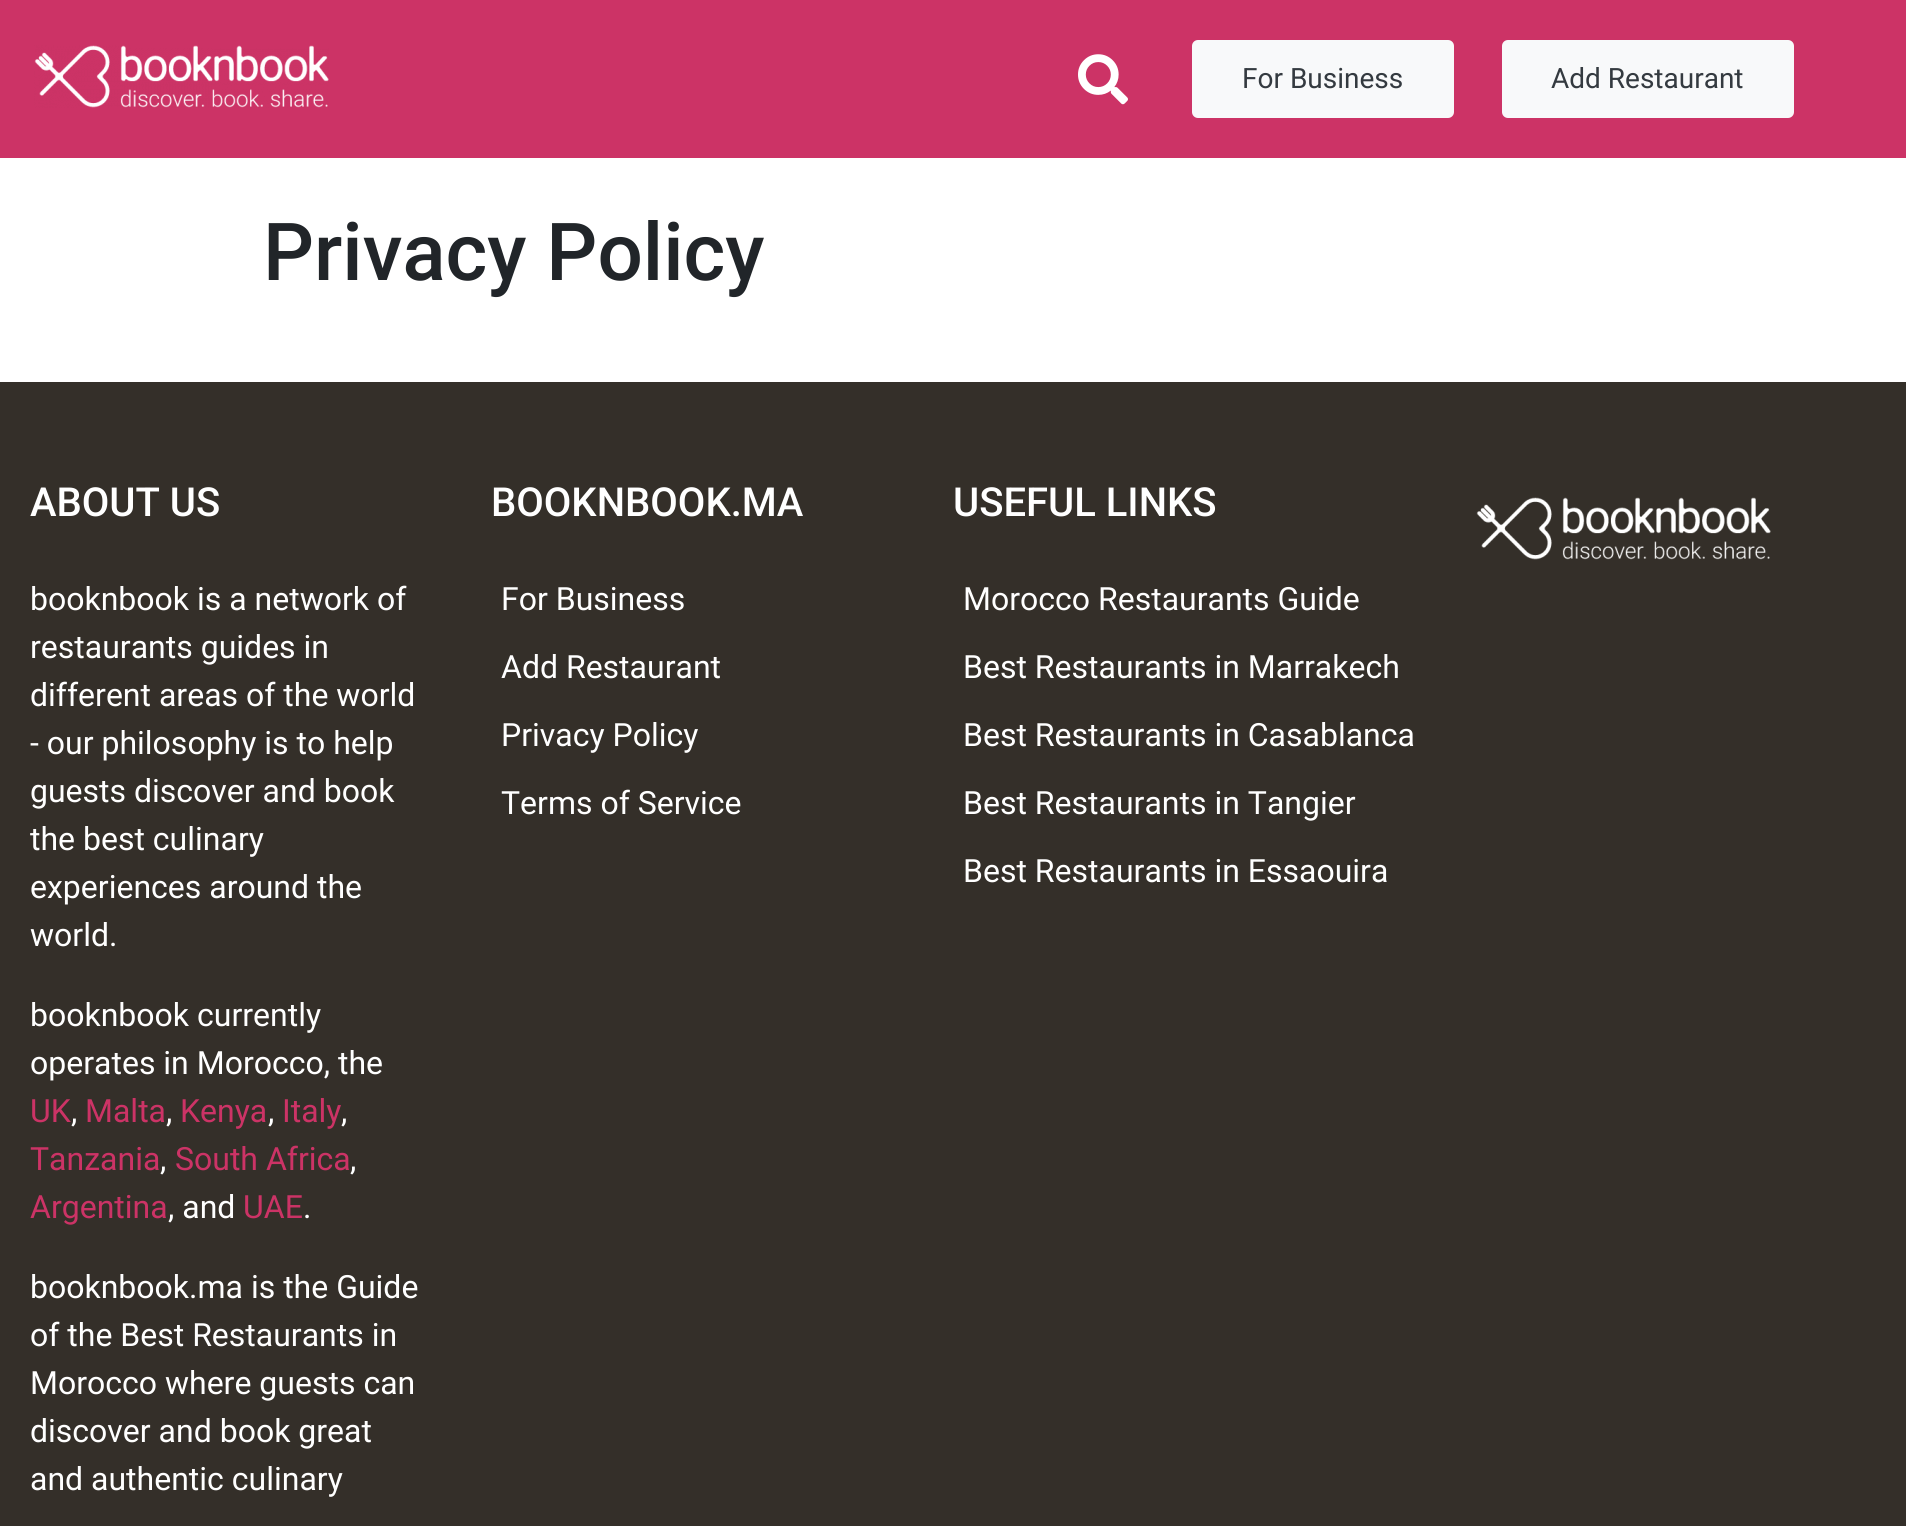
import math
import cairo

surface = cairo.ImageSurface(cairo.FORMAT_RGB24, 1906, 1526)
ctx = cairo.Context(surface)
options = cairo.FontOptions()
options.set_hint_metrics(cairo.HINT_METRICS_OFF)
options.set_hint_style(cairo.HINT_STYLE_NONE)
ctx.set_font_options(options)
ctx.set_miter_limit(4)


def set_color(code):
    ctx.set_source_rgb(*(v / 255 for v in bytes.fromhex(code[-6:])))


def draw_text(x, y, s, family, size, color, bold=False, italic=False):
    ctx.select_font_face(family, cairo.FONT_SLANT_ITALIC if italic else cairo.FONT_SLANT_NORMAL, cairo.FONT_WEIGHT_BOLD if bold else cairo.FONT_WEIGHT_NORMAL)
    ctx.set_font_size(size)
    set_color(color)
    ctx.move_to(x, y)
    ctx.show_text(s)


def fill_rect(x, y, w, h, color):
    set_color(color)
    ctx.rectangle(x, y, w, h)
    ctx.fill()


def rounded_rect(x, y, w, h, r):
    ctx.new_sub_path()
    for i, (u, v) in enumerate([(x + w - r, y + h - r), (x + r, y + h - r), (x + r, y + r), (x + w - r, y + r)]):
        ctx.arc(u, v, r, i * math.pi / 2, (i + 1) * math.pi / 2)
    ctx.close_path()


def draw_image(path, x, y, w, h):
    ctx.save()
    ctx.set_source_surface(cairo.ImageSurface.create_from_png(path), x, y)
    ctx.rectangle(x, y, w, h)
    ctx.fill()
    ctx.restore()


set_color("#ffffff")
ctx.paint()
fill_rect(0, 0, 1906, 158, "#cc3366")
draw_image("assets/img1.png", 34, 45, 295, 63)
draw_image("assets/img2.png", 1078, 54, 50, 51)
set_color("#f8f9fa")
rounded_rect(1193, 41, 260, 76, 5)
ctx.fill_preserve()
ctx.stroke()
draw_text(1242, 88, "For Business", "Roboto", 28, "#343a40")
set_color("#f8f9fa")
rounded_rect(1503, 41, 290, 76, 5)
ctx.fill_preserve()
ctx.stroke()
draw_text(1551, 88, "Add Restaurant", "Roboto", 28, "#343a40")
draw_text(263, 280, "Privacy Policy", "Roboto Medium", 80, "#212529")
fill_rect(0, 382, 1906, 1144, "#342f29")
draw_text(30, 516, "ABOUT US", "Roboto Medium", 40, "#ffffff")
draw_text(30, 610, "booknbook is a network of", "Roboto", 32, "#ffffff")
draw_text(30, 658, "restaurants guides in", "Roboto", 32, "#ffffff")
draw_text(30, 706, "different areas of the world", "Roboto", 32, "#ffffff")
draw_text(30, 754, "- our philosophy is to help", "Roboto", 32, "#ffffff")
draw_text(30, 802, "guests discover and book", "Roboto", 32, "#ffffff")
draw_text(30, 850, "the best culinary", "Roboto", 32, "#ffffff")
draw_text(30, 898, "experiences around the", "Roboto", 32, "#ffffff")
draw_text(30, 946, "world.", "Roboto", 32, "#ffffff")
draw_text(30, 1026, "booknbook currently", "Roboto", 32, "#ffffff")
draw_text(30, 1074, "operates in Morocco, the", "Roboto", 32, "#ffffff")
draw_text(30, 1122, "UK", "Roboto", 32, "#cc3366")
draw_text(71, 1122, ",", "Roboto", 32, "#ffffff")
draw_text(85, 1122, "Malta", "Roboto", 32, "#cc3366")
draw_text(166, 1122, ",", "Roboto", 32, "#ffffff")
draw_text(180, 1122, "Kenya", "Roboto", 32, "#cc3366")
draw_text(268, 1122, ",", "Roboto", 32, "#ffffff")
draw_text(282, 1122, "Italy", "Roboto", 32, "#cc3366")
draw_text(341, 1122, ",", "Roboto", 32, "#ffffff")
draw_text(30, 1170, "Tanzania", "Roboto", 32, "#cc3366")
draw_text(160, 1170, ",", "Roboto", 32, "#ffffff")
draw_text(175, 1170, "South Africa", "Roboto", 32, "#cc3366")
draw_text(350, 1170, ",", "Roboto", 32, "#ffffff")
draw_text(30, 1218, "Argentina", "Roboto", 32, "#cc3366")
draw_text(168, 1218, ", and", "Roboto", 32, "#ffffff")
draw_text(243, 1218, "UAE", "Roboto", 32, "#cc3366")
draw_text(303, 1218, ".", "Roboto", 32, "#ffffff")
draw_text(30, 1298, "booknbook.ma is the Guide", "Roboto", 32, "#ffffff")
draw_text(30, 1346, "of the Best Restaurants in", "Roboto", 32, "#ffffff")
draw_text(30, 1394, "Morocco where guests can", "Roboto", 32, "#ffffff")
draw_text(30, 1442, "discover and book great", "Roboto", 32, "#ffffff")
draw_text(30, 1490, "and authentic culinary", "Roboto", 32, "#ffffff")
draw_text(491, 516, "BOOKNBOOK.MA", "Roboto Medium", 40, "#ffffff")
draw_text(501, 610, "For Business", "Roboto", 32, "#ffffff")
draw_text(501, 678, "Add Restaurant", "Roboto", 32, "#ffffff")
draw_text(501, 746, "Privacy Policy", "Roboto", 32, "#ffffff")
draw_text(501, 814, "Terms of Service", "Roboto", 32, "#ffffff")
draw_text(953, 516, "USEFUL LINKS", "Roboto Medium", 40, "#ffffff")
draw_text(963, 610, "Morocco Restaurants Guide", "Roboto", 32, "#ffffff")
draw_text(963, 678, "Best Restaurants in Marrakech", "Roboto", 32, "#ffffff")
draw_text(963, 746, "Best Restaurants in Casablanca", "Roboto", 32, "#ffffff")
draw_text(963, 814, "Best Restaurants in Tangier", "Roboto", 32, "#ffffff")
draw_text(963, 882, "Best Restaurants in Essaouira", "Roboto", 32, "#ffffff")
draw_image("assets/img3.png", 1476, 497, 295, 63)
surface.write_to_png("output.png")
